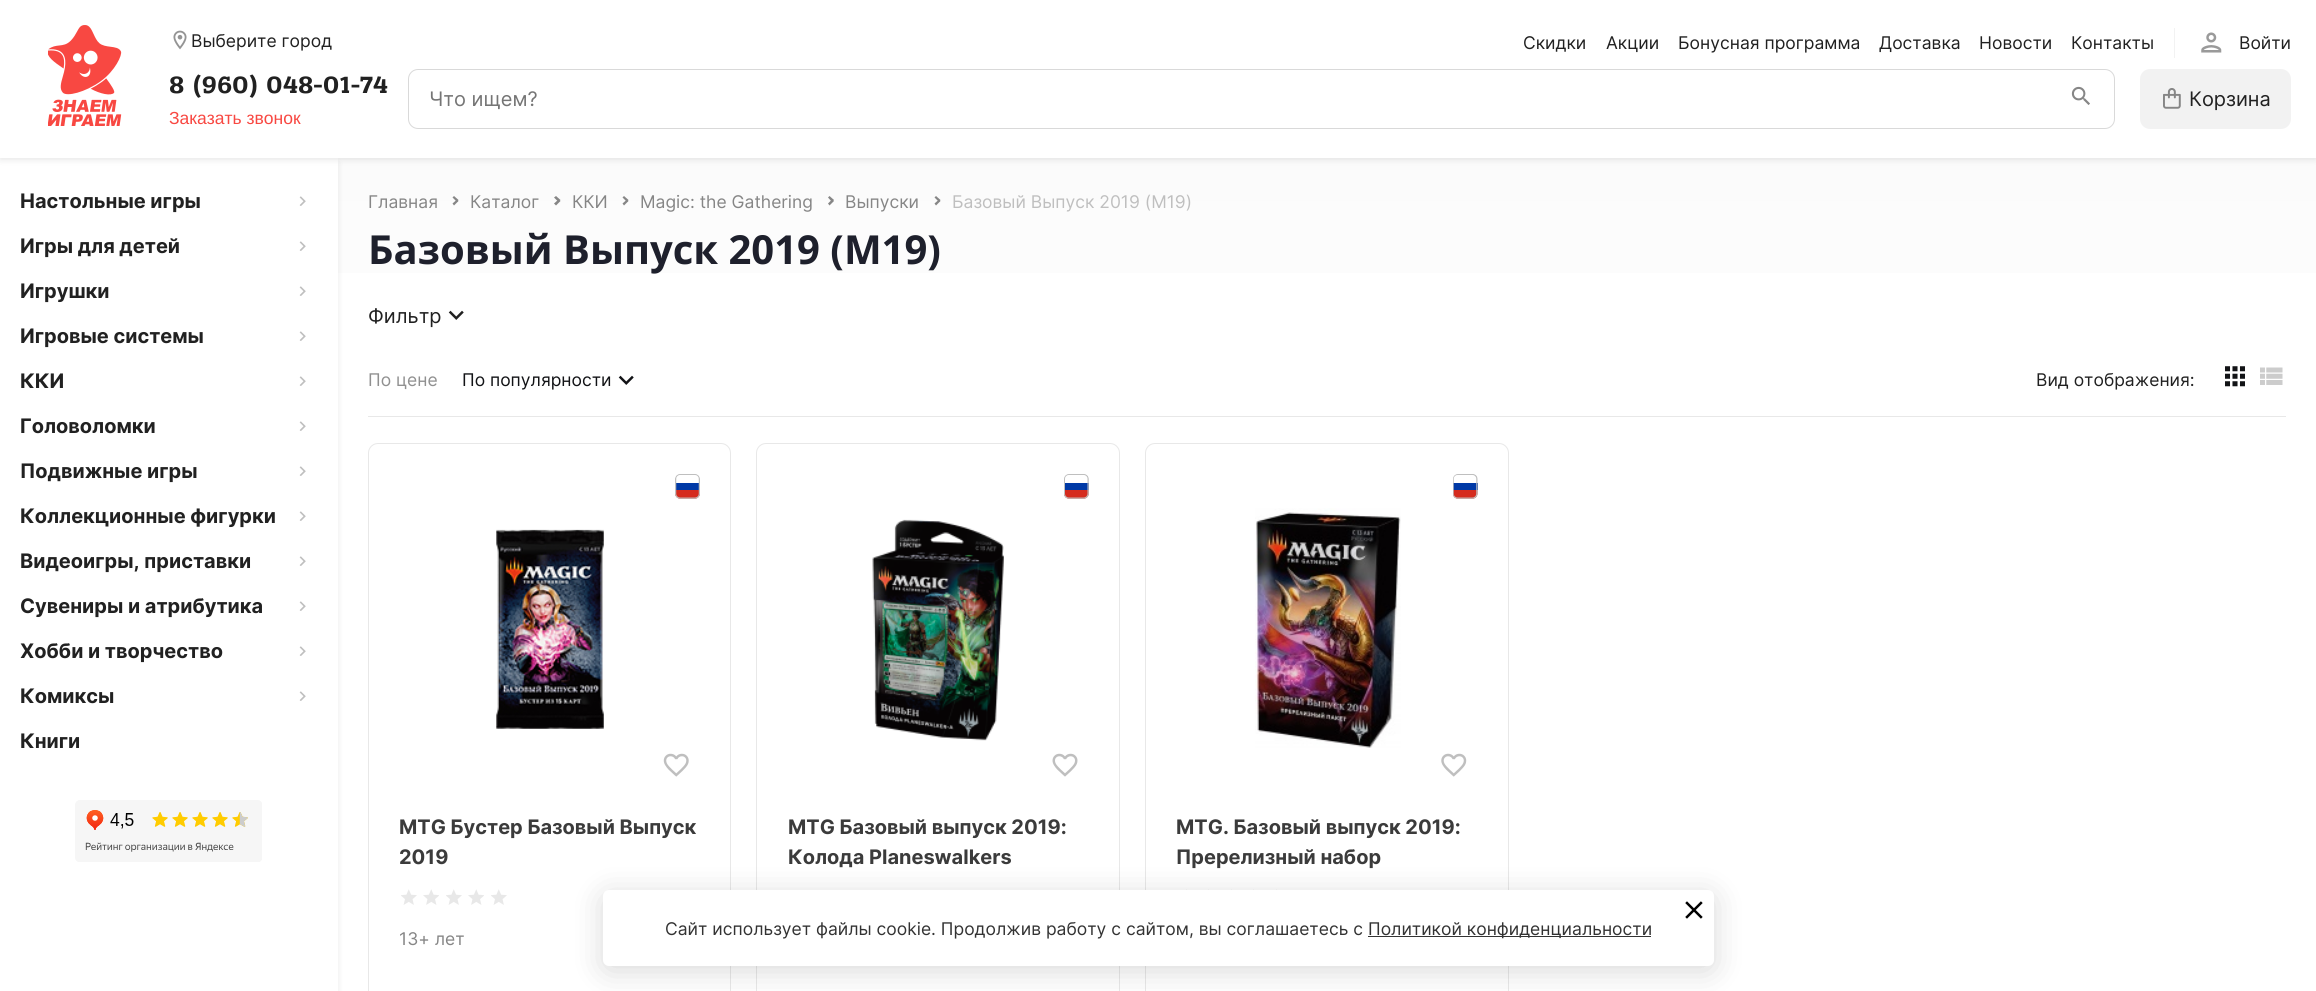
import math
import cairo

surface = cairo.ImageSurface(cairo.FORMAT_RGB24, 2316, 991)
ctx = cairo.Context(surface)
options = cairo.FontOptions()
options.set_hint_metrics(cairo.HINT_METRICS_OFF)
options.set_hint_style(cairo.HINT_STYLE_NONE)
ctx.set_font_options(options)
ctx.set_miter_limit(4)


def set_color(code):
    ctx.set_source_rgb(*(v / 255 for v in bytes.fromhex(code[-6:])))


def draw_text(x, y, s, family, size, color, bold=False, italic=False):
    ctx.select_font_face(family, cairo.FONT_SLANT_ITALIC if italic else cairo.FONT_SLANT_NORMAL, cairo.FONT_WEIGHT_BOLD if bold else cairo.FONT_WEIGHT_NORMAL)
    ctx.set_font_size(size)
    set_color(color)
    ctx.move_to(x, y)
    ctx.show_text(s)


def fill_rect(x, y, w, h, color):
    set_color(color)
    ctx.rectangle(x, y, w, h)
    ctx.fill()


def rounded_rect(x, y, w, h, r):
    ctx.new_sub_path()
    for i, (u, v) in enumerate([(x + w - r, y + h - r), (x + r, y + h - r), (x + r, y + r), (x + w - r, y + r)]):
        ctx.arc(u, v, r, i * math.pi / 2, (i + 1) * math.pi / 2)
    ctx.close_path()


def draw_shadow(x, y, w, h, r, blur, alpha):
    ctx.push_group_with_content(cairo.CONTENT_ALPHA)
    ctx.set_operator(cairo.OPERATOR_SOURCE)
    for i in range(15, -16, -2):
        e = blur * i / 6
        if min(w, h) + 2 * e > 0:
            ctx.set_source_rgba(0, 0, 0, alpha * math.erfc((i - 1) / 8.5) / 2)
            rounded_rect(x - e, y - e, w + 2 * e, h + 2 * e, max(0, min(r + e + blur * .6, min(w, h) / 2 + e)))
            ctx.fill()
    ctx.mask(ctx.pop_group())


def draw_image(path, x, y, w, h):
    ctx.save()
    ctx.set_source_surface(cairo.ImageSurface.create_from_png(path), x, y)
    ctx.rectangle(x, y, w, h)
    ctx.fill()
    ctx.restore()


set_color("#ffffff")
ctx.paint()
gradient = cairo.LinearGradient(1327, 157, 1327, 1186)
gradient.add_color_stop_rgba(0, 0.984, 0.984, 0.984, 1)
gradient.add_color_stop_rgba(0.3, 1, 1, 1, 1)
ctx.set_source(gradient)
ctx.rectangle(338, 158, 1978, 115)
ctx.fill()
ctx.save()
ctx.set_fill_rule(cairo.FILL_RULE_EVEN_ODD)
ctx.new_path()
ctx.move_to(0, 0)
ctx.line_to(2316, 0)
ctx.line_to(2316, 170)
ctx.line_to(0, 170)
ctx.close_path()
ctx.move_to(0, 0)
ctx.line_to(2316, 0)
ctx.line_to(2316, 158)
ctx.line_to(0, 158)
ctx.close_path()
ctx.clip()
set_color("#121316")
draw_shadow(0, 3, 2316, 157, 0, 3, 0.1)
ctx.restore()
draw_image("assets/img1.png", 48, 25, 74, 101)
draw_image("assets/img2.png", 173, 30, 14, 20)
draw_text(191, 47, "Выберите город", "Inter", 17.5, "#212121")
draw_text(1523, 49, "Скидки", "Inter", 17.5, "#212121")
draw_text(1606, 49, "Акции", "Inter", 17.5, "#212121")
draw_text(1678, 49, "Бонусная программа", "Inter", 17.5, "#212121")
draw_text(1879, 49, "Доставка", "Inter", 17.5, "#212121")
draw_text(1979, 49, "Новости", "Inter", 17.5, "#212121")
draw_text(2071, 49, "Контакты", "Inter", 17.5, "#212121")
fill_rect(2174, 28, 1, 30, "#f2f2f2")
draw_image("assets/img3.png", 2201, 32, 21, 21)
draw_text(2239, 49, "Войти", "Inter", 17.5, "#212121")
draw_text(169, 93, "8 (960) 048-01-74", "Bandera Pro", 25, "#212121", bold=True)
draw_text(169, 124, "Заказать звонок", "Liberation Sans", 17.5, "#f84842")
rounded_rect(408.5, 69.5, 1706, 59, 9.5)
set_color("#d9d9d9")
ctx.set_line_width(1)
ctx.stroke()
draw_text(429, 106, "Что ищем?", "Inter", 20, "#757575")
draw_image("assets/img4.png", 2071, 86, 19, 19)
set_color("#f2f2f2")
rounded_rect(2140, 69, 151, 60, 10)
ctx.fill()
draw_image("assets/img5.png", 2163, 88, 18, 21)
draw_text(2189, 106, "Корзина", "Inter", 20, "#212121")
draw_image("assets/img6.png", 299, 196, 7, 10)
draw_image("assets/img6.png", 299, 241, 7, 10)
draw_image("assets/img6.png", 299, 286, 7, 10)
draw_image("assets/img6.png", 299, 331, 7, 10)
draw_image("assets/img6.png", 299, 376, 7, 10)
draw_image("assets/img6.png", 299, 421, 7, 10)
draw_image("assets/img6.png", 299, 466, 7, 10)
draw_image("assets/img6.png", 299, 511, 7, 10)
draw_image("assets/img6.png", 299, 556, 7, 10)
draw_image("assets/img6.png", 299, 601, 7, 10)
draw_image("assets/img6.png", 299, 646, 7, 10)
draw_image("assets/img6.png", 299, 691, 7, 10)
draw_image("assets/img7.png", 75, 800, 187, 62)
ctx.save()
ctx.set_fill_rule(cairo.FILL_RULE_EVEN_ODD)
ctx.new_path()
ctx.move_to(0, 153)
ctx.line_to(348, 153)
ctx.line_to(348, 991)
ctx.line_to(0, 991)
ctx.close_path()
ctx.move_to(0, 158)
ctx.line_to(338, 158)
ctx.line_to(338, 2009)
ctx.line_to(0, 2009)
ctx.close_path()
ctx.clip()
set_color("#121316")
draw_shadow(0, 163, 338, 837, 0, 3, 0.1)
ctx.restore()
draw_text(20, 208, "Настольные игры", "Inter", 20, "#212121", bold=True)
draw_text(20, 253, "Игры для детей", "Inter", 20, "#212121", bold=True)
draw_text(20, 298, "Игрушки", "Inter", 20, "#212121", bold=True)
draw_text(20, 343, "Игровые системы", "Inter", 20, "#212121", bold=True)
draw_text(20, 388, "ККИ", "Inter", 20, "#212121", bold=True)
draw_text(20, 433, "Головоломки", "Inter", 20, "#212121", bold=True)
draw_text(20, 478, "Подвижные игры", "Inter", 20, "#212121", bold=True)
draw_text(20, 523, "Коллекционные фигурки", "Inter", 20, "#212121", bold=True)
draw_text(20, 568, "Видеоигры, приставки", "Inter", 20, "#212121", bold=True)
draw_text(20, 613, "Сувениры и атрибутика", "Inter", 20, "#212121", bold=True)
draw_text(20, 658, "Хобби и творчество", "Inter", 20, "#212121", bold=True)
draw_text(20, 703, "Комиксы", "Inter", 20, "#212121", bold=True)
draw_text(20, 748, "Книги", "Inter", 20, "#212121", bold=True)
draw_text(368, 208, "Главная", "Inter", 17.5, "#868686")
ctx.new_path()
ctx.move_to(452.5, 197.5)
ctx.line_to(454, 196)
ctx.line_to(458.5, 200)
ctx.line_to(457, 202)
ctx.close_path()
ctx.fill()
ctx.new_path()
ctx.move_to(452.5, 203.5)
ctx.line_to(457, 199.5)
ctx.line_to(458.5, 201)
ctx.line_to(454, 205.5)
ctx.close_path()
ctx.fill()
draw_text(470, 208, "Каталог", "Inter", 17.5, "#868686")
ctx.new_path()
ctx.move_to(554, 197.5)
ctx.line_to(556, 196)
ctx.line_to(560.5, 200)
ctx.line_to(558.5, 202)
ctx.close_path()
ctx.fill()
ctx.new_path()
ctx.move_to(554, 203.5)
ctx.line_to(558.5, 199.5)
ctx.line_to(560.5, 201)
ctx.line_to(556, 205.5)
ctx.close_path()
ctx.fill()
draw_text(572, 208, "ККИ", "Inter", 17.5, "#868686")
ctx.new_path()
ctx.move_to(622.5, 197.5)
ctx.line_to(624, 196)
ctx.line_to(628.5, 200)
ctx.line_to(627, 202)
ctx.close_path()
ctx.fill()
ctx.new_path()
ctx.move_to(622.5, 203.5)
ctx.line_to(627, 199.5)
ctx.line_to(628.5, 201)
ctx.line_to(624, 205.5)
ctx.close_path()
ctx.fill()
draw_text(640, 208, "Magic: the Gathering", "Inter", 17.5, "#868686")
ctx.new_path()
ctx.move_to(828, 197.5)
ctx.line_to(829.5, 196)
ctx.line_to(834, 200)
ctx.line_to(832, 202)
ctx.close_path()
ctx.fill()
ctx.new_path()
ctx.move_to(828, 203.5)
ctx.line_to(832, 199.5)
ctx.line_to(834, 201)
ctx.line_to(829.5, 205.5)
ctx.close_path()
ctx.fill()
draw_text(845, 208, "Выпуски", "Inter", 17.5, "#868686")
ctx.new_path()
ctx.move_to(934.5, 197.5)
ctx.line_to(936, 196)
ctx.line_to(940.5, 200)
ctx.line_to(939, 202)
ctx.close_path()
ctx.fill()
ctx.new_path()
ctx.move_to(934.5, 203.5)
ctx.line_to(939, 199.5)
ctx.line_to(940.5, 201)
ctx.line_to(936, 205.5)
ctx.close_path()
ctx.fill()
draw_text(952, 208, "Базовый Выпуск 2019 (M19)", "Inter", 17.5, "#bfbfbf")
draw_text(368, 264, "Базовый Выпуск 2019 (M19)", "Open Sans", 40, "#1e202c", bold=True)
draw_text(368, 323, "Фильтр", "Inter", 20, "#212121")
draw_image("assets/img8.png", 448, 310, 16, 10)
fill_rect(368, 416, 1918, 1, "#e8e8e8")
draw_text(368, 386, "По цене", "Inter", 17.5, "#909090")
draw_text(462, 386, "По популярности", "Inter", 17.5, "#121316")
draw_image("assets/img9.png", 618, 375, 16, 10)
draw_text(2036, 386, "Вид отображения:", "Inter", 17.5, "#212121")
draw_image("assets/img10.png", 2225, 366, 20, 21)
draw_image("assets/img11.png", 2260, 367, 23, 18)
rounded_rect(368.5, 443.5, 362, 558, 9.5)
set_color("#e8e8e8")
ctx.stroke()
draw_image("assets/img12.png", 675, 474, 25, 25)
draw_image("assets/img13.png", 496, 529, 108, 200)
draw_image("assets/img14.png", 663, 753, 26, 24)
draw_text(399, 834, "MTG Бустер Базовый Выпуск", "Inter", 20, "#3b3b3b", bold=True)
draw_text(399, 864, "2019", "Inter", 20, "#3b3b3b", bold=True)
draw_image("assets/img15.png", 401, 889, 16, 16)
draw_image("assets/img16.png", 423, 889, 16, 16)
draw_image("assets/img15.png", 446, 889, 16, 16)
draw_image("assets/img16.png", 468, 889, 16, 16)
draw_image("assets/img15.png", 491, 889, 16, 16)
draw_text(399, 945, "13+ лет", "Inter", 17.5, "#868686")
rounded_rect(756.5, 443.5, 363, 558, 9.5)
set_color("#e8e8e8")
ctx.stroke()
draw_image("assets/img17.png", 1064, 474, 25, 25)
draw_image("assets/img18.png", 872, 519, 132, 222)
draw_image("assets/img19.png", 1052, 753, 26, 24)
draw_text(788, 834, "MTG Базовый выпуск 2019:", "Inter", 20, "#3b3b3b", bold=True)
draw_text(788, 864, "Колода Planeswalkers", "Inter", 20, "#3b3b3b", bold=True)
rounded_rect(1145.5, 443.5, 363, 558, 9.5)
set_color("#e8e8e8")
ctx.stroke()
draw_image("assets/img20.png", 1453, 474, 25, 25)
draw_image("assets/img21.png", 1255, 508, 146, 240)
draw_image("assets/img22.png", 1441, 753, 26, 24)
draw_text(1176, 834, "MTG. Базовый выпуск 2019:", "Inter", 20, "#3b3b3b", bold=True)
draw_text(1176, 864, "Пререлизный набор", "Inter", 20, "#3b3b3b", bold=True)
draw_image("assets/img23.png", 1186, 889, 1, 1)
draw_image("assets/img23.png", 1208, 889, 1, 1)
draw_image("assets/img23.png", 1231, 889, 1, 1)
draw_image("assets/img23.png", 1253, 889, 1, 1)
draw_image("assets/img23.png", 1276, 889, 1, 1)
set_color("#000000")
draw_shadow(603, 895, 1111, 76, 6, 15.5, 0.15)
set_color("#ffffff")
rounded_rect(603, 890, 1111, 76, 6)
ctx.fill()
draw_image("assets/img24.png", 1685, 901, 18, 18)
draw_text(665, 935, "Сайт использует файлы cookie. Продолжив работу с сайтом, вы соглашаетесь с", "Inter", 17.5, "#333333")
fill_rect(1368, 936, 283, 1, "#333333")
draw_text(1368, 935, "Политикой конфиденциальности", "Inter", 17.5, "#333333")
surface.write_to_png("output.png")
